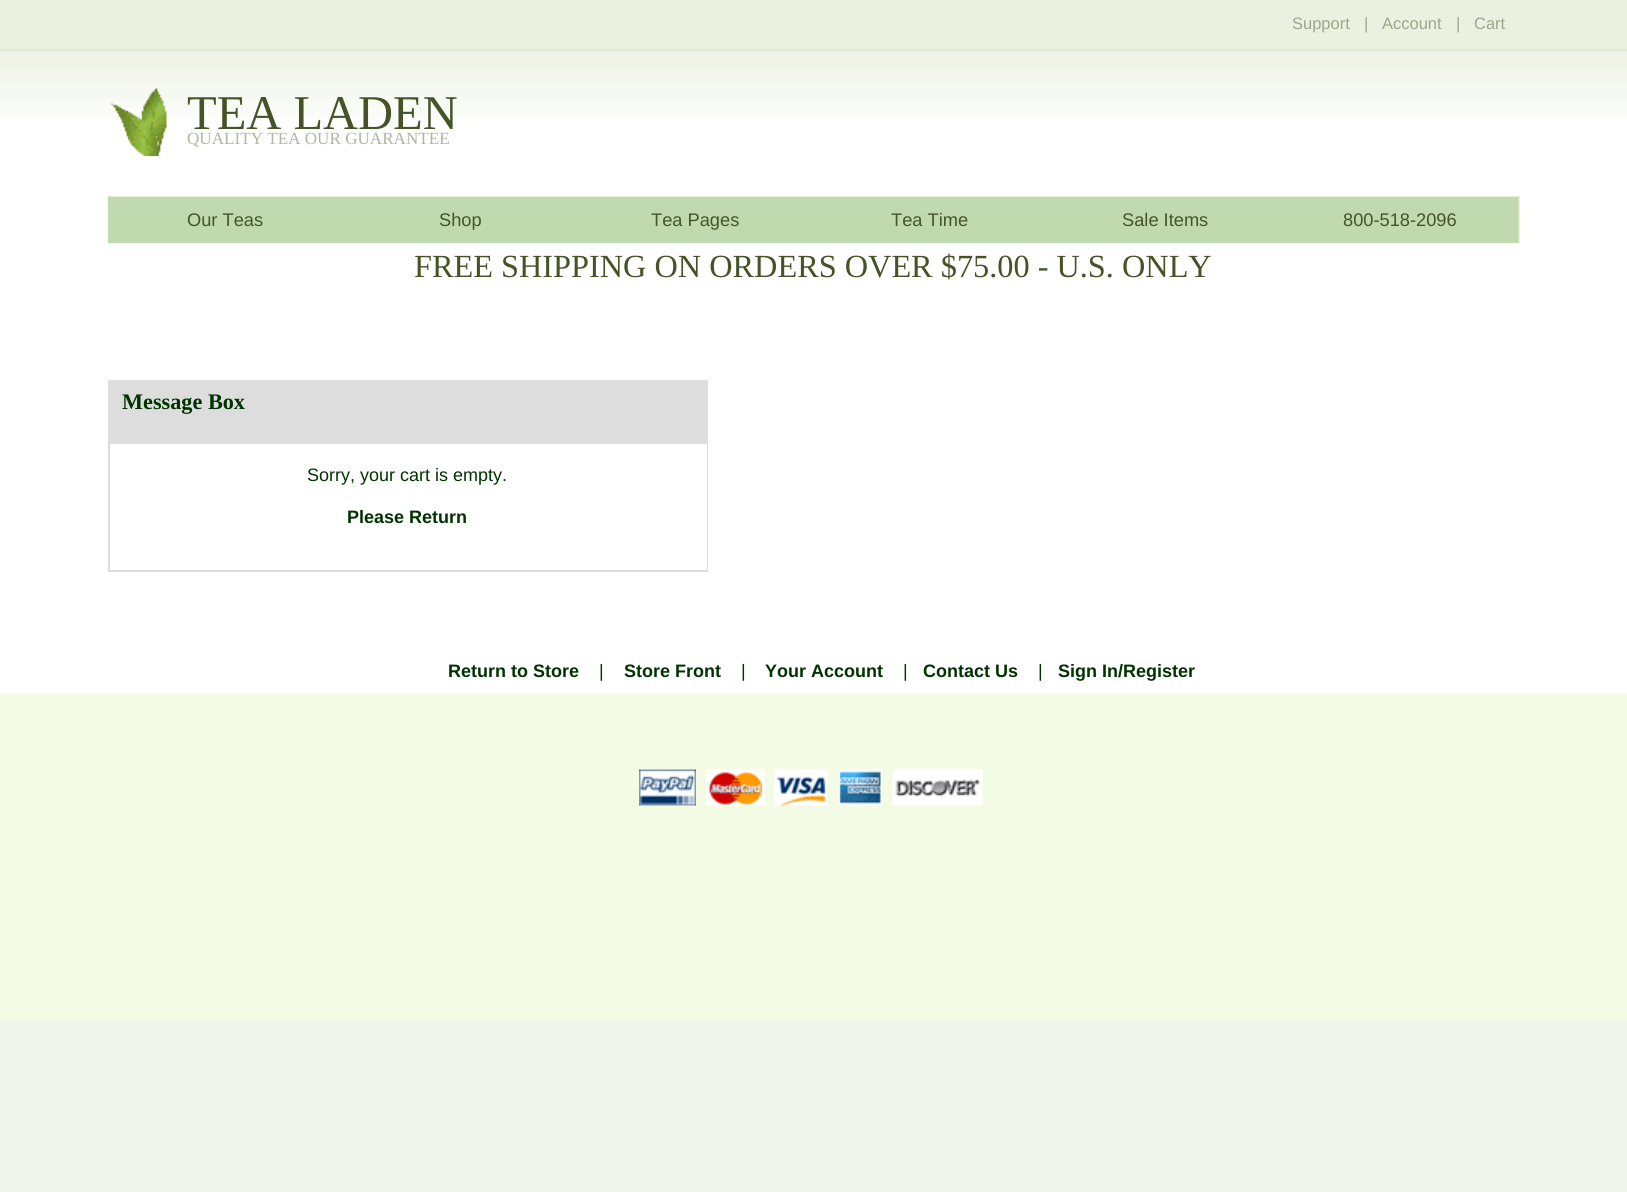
import math
import cairo

surface = cairo.ImageSurface(cairo.FORMAT_RGB24, 1627, 1192)
ctx = cairo.Context(surface)
options = cairo.FontOptions()
options.set_hint_metrics(cairo.HINT_METRICS_OFF)
options.set_hint_style(cairo.HINT_STYLE_NONE)
ctx.set_font_options(options)
ctx.set_miter_limit(4)


def set_color(code):
    ctx.set_source_rgb(*(v / 255 for v in bytes.fromhex(code[-6:])))


def draw_text(x, y, s, family, size, color, bold=False, italic=False):
    ctx.select_font_face(family, cairo.FONT_SLANT_ITALIC if italic else cairo.FONT_SLANT_NORMAL, cairo.FONT_WEIGHT_BOLD if bold else cairo.FONT_WEIGHT_NORMAL)
    ctx.set_font_size(size)
    set_color(color)
    ctx.move_to(x, y)
    ctx.show_text(s)


def fill_rect(x, y, w, h, color):
    set_color(color)
    ctx.rectangle(x, y, w, h)
    ctx.fill()


def draw_image(path, x, y, w, h):
    ctx.save()
    ctx.set_source_surface(cairo.ImageSurface.create_from_png(path), x, y)
    ctx.rectangle(x, y, w, h)
    ctx.fill()
    ctx.restore()


set_color("#f1f5eb")
ctx.paint()
fill_rect(0, 120, 1627, 574, "#ffffff")
draw_image("assets/img1.png", 0, 0, 1627, 120)
fill_rect(0, 694, 1627, 326, "#f3fbe4")
draw_text(1292, 29, "Support", "Liberation Sans", 16.5, "#9da68c")
draw_text(1364, 29, "|", "Liberation Sans", 16.5, "#9da68c")
draw_text(1382, 29, "Account", "Liberation Sans", 16.5, "#9da68c")
draw_text(1456, 29, "|", "Liberation Sans", 16.5, "#9da68c")
draw_text(1474, 29, "Cart", "Liberation Sans", 16.5, "#9da68c")
draw_image("assets/img2.png", 110, 88, 57, 68)
draw_text(187, 129, "TEA LADEN", "Liberation Serif", 48.5, "#445427")
draw_text(187, 144, "QUALITY TEA OUR GUARANTEE", "Liberation Serif", 17.1, "#afb7a1")
draw_image("assets/img3.png", 111, 196, 1409, 2)
draw_image("assets/img4.png", 1519, 241, 1, 2)
fill_rect(108, 196, 3, 1, "#d7e5bd")
draw_image("assets/img5.png", 1518, 196, 2, 47)
fill_rect(108, 197, 1410, 46, "#c0d9af")
draw_text(187, 226, "Our Teas", "Liberation Sans", 18.25, "#445427")
draw_text(439, 226, "Shop", "Liberation Sans", 18.25, "#445427")
draw_text(651, 226, "Tea Pages", "Liberation Sans", 18.25, "#445427")
draw_text(891, 226, "Tea Time", "Liberation Sans", 18.25, "#445427")
draw_text(1122, 226, "Sale Items", "Liberation Sans", 18.25, "#445427")
draw_text(1343, 226, "800-518-2096", "Liberation Sans", 18.25, "#445427")
draw_text(414, 277, "FREE SHIPPING ON ORDERS OVER $75.00 - U.S. ONLY", "Liberation Serif", 32.3, "#445427")
fill_rect(108, 380, 600, 192, "#dddddd")
draw_text(122, 409, "Message Box", "Liberation Serif", 22.25, "#003300", bold=True)
fill_rect(110, 444, 597, 126, "#ffffff")
draw_text(307, 481, "Sorry, your cart is empty.", "Liberation Sans", 18, "#003300")
draw_text(347, 523, "Please Return", "Liberation Sans", 18, "#003300", bold=True)
draw_text(448, 677, "Return to Store", "Liberation Sans", 18, "#003300", bold=True)
draw_text(599, 677, "|", "Liberation Sans", 18, "#003300")
draw_text(624, 677, "Store Front", "Liberation Sans", 18, "#003300", bold=True)
draw_text(741, 677, "|", "Liberation Sans", 18, "#003300")
draw_text(765, 677, "Your Account", "Liberation Sans", 18, "#003300", bold=True)
draw_text(903, 677, "|", "Liberation Sans", 18, "#003300")
draw_text(923, 677, "Contact Us", "Liberation Sans", 18, "#003300", bold=True)
draw_text(1038, 677, "|", "Liberation Sans", 18, "#003300")
draw_text(1058, 677, "Sign In/Register", "Liberation Sans", 18, "#003300", bold=True)
draw_image("assets/img6.png", 639, 769, 57, 37)
draw_image("assets/img7.png", 706, 769, 59, 37)
draw_image("assets/img8.png", 774, 769, 54, 37)
draw_image("assets/img9.png", 838, 769, 44, 37)
draw_image("assets/img10.png", 892, 769, 91, 37)
surface.write_to_png("output.png")
